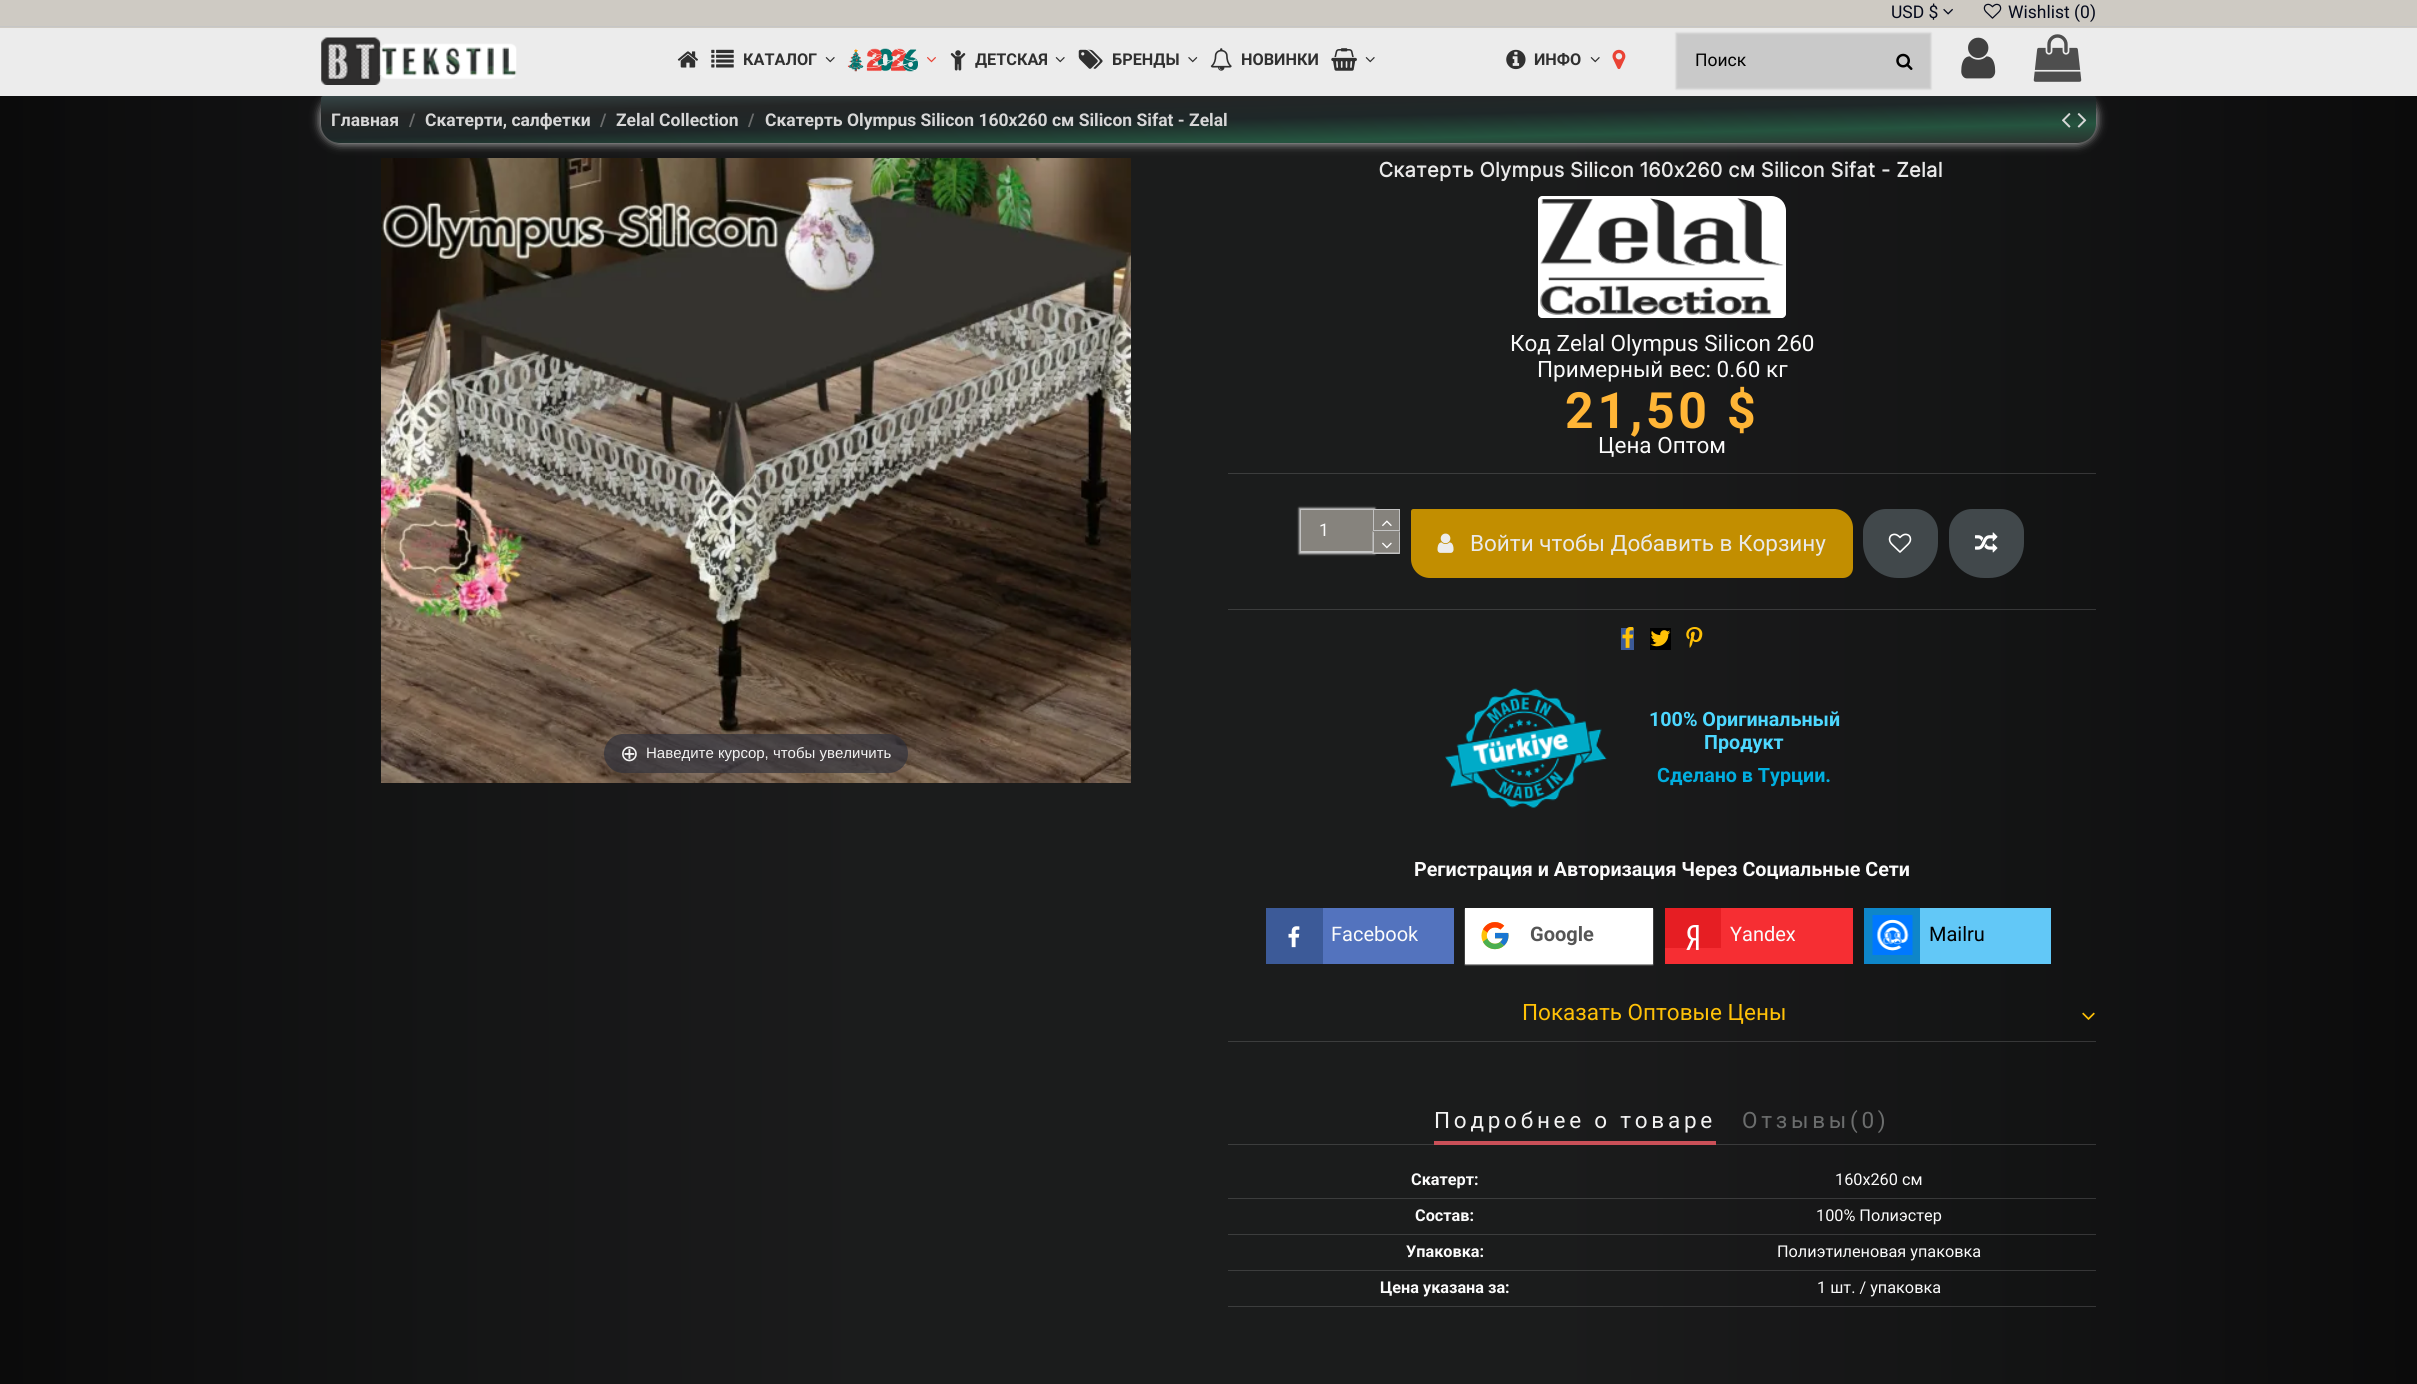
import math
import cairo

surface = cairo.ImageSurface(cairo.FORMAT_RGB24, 2417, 1384)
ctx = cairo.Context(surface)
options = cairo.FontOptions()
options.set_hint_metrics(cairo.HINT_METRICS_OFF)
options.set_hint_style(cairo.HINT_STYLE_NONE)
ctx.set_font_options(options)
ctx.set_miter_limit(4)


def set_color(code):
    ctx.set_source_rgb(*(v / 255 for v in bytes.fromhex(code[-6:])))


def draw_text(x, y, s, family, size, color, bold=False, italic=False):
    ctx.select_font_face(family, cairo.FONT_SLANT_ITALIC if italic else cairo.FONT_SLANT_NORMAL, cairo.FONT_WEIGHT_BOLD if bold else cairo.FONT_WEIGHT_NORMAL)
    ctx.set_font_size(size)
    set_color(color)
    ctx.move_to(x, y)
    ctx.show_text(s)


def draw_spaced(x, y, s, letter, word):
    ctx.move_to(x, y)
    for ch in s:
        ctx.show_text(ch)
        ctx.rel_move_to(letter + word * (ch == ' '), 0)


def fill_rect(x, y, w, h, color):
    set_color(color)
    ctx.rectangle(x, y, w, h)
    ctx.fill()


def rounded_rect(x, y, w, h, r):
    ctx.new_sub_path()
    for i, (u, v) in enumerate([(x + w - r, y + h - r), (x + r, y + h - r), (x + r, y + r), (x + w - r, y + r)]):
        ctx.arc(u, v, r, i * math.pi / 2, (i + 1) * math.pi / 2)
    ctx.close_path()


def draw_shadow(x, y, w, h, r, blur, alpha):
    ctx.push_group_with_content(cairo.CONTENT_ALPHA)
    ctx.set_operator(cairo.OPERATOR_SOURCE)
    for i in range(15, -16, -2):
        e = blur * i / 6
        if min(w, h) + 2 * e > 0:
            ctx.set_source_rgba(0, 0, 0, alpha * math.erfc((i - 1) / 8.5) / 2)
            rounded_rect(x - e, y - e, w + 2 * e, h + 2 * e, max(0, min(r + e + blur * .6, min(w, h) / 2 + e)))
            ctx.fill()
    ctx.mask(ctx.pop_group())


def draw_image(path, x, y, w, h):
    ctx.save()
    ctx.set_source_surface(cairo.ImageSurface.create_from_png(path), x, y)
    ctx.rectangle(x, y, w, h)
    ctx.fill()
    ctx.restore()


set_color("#ffffff")
ctx.paint()
gradient = cairo.LinearGradient(0, 693, 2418, 692)
gradient.add_color_stop_rgba(0, 0.043, 0.043, 0.043, 1)
gradient.add_color_stop_rgba(0.09, 0.063, 0.063, 0.067, 1)
gradient.add_color_stop_rgba(0.18, 0.078, 0.082, 0.082, 1)
gradient.add_color_stop_rgba(0.27, 0.094, 0.094, 0.098, 1)
gradient.add_color_stop_rgba(0.36, 0.106, 0.11, 0.11, 1)
gradient.add_color_stop_rgba(0.64, 0.106, 0.11, 0.11, 1)
gradient.add_color_stop_rgba(0.73, 0.094, 0.094, 0.098, 1)
gradient.add_color_stop_rgba(0.82, 0.078, 0.082, 0.082, 1)
gradient.add_color_stop_rgba(0.91, 0.063, 0.063, 0.067, 1)
gradient.add_color_stop_rgba(1, 0.043, 0.043, 0.043, 1)
ctx.set_source(gradient)
ctx.rectangle(0, 96, 2417, 1288)
ctx.fill()
gradient = cairo.LinearGradient(0, 693, 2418, 692)
gradient.add_color_stop_rgba(0, 0.188, 0.188, 0.188, 1)
gradient.add_color_stop_rgba(0.09, 0.204, 0.204, 0.208, 1)
gradient.add_color_stop_rgba(0.18, 0.216, 0.22, 0.22, 1)
gradient.add_color_stop_rgba(0.27, 0.227, 0.227, 0.231, 1)
gradient.add_color_stop_rgba(0.36, 0.235, 0.239, 0.239, 1)
gradient.add_color_stop_rgba(0.64, 0.235, 0.239, 0.239, 1)
gradient.add_color_stop_rgba(0.73, 0.227, 0.227, 0.231, 1)
gradient.add_color_stop_rgba(0.82, 0.216, 0.22, 0.22, 1)
gradient.add_color_stop_rgba(0.91, 0.204, 0.204, 0.208, 1)
gradient.add_color_stop_rgba(1, 0.188, 0.188, 0.188, 1)
ctx.set_source(gradient)
ctx.rectangle(1228, 1041, 868, 1)
ctx.fill()
ctx.rectangle(1663, 1306, 433, 1)
ctx.fill()
ctx.rectangle(1663, 1270, 433, 1)
ctx.fill()
ctx.rectangle(1663, 1234, 433, 1)
ctx.fill()
ctx.rectangle(1663, 1198, 433, 1)
ctx.fill()
ctx.rectangle(1228, 1144, 868, 1)
ctx.fill()
ctx.rectangle(1228, 609, 868, 1)
ctx.fill()
ctx.rectangle(1228, 473, 868, 1)
ctx.fill()
set_color("#d7d7d7")
draw_shadow(321, 96, 1775, 47, 19, 5, 1)
fill_rect(0, 28, 2417, 68, "#ececec")
fill_rect(0, 0, 2417, 28, "#cecac3")
fill_rect(0, 26, 2417, 1, "#c6c6c6")
draw_text(1891, 18, "USD $", "Roboto", 17.5, "#050a1c")
draw_image("assets/img1.png", 1943, 8, 10, 7)
draw_image("assets/img2.png", 1983, 3, 19, 16)
draw_text(2008, 18, "Wishlist (0)", "Roboto", 17.5, "#050a1c")
draw_image("assets/img3.png", 321, 37, 196, 48)
draw_image("assets/img4.png", 677, 51, 21, 17)
draw_image("assets/img5.png", 711, 49, 23, 19)
draw_text(743, 65, "КАТАЛОГ", "Roboto", 16.25, "#303030", bold=True)
draw_image("assets/img6.png", 825, 57, 10, 6)
draw_image("assets/img7.png", 847, 48, 72, 24)
draw_image("assets/img8.png", 927, 57, 9, 6)
draw_image("assets/img9.png", 950, 50, 16, 21)
draw_text(975, 65, "ДЕТСКАЯ", "Roboto", 16.25, "#303030", bold=True)
draw_image("assets/img6.png", 1055, 57, 10, 6)
draw_image("assets/img10.png", 1078, 49, 25, 20)
draw_text(1112, 65, "БРЕНДЫ", "Roboto", 16.25, "#303030", bold=True)
draw_image("assets/img11.png", 1188, 57, 10, 6)
draw_image("assets/img12.png", 1210, 48, 22, 23)
draw_text(1241, 65, "НОВИНКИ", "Roboto", 16.25, "#303030", bold=True)
draw_image("assets/img13.png", 1331, 48, 26, 23)
draw_image("assets/img6.png", 1365, 57, 10, 6)
draw_image("assets/img14.png", 1506, 49, 20, 21)
draw_text(1534, 65, "ИНФО", "Roboto", 16.25, "#303030", bold=True)
draw_image("assets/img6.png", 1590, 57, 10, 6)
draw_image("assets/img15.png", 1612, 49, 14, 21)
set_color("#c9c9c9")
draw_shadow(1676, 33, 255, 56, 0, 1, 1)
draw_text(1695, 66, "Поиск", "Roboto", 17.5, "#000000")
draw_image("assets/img16.png", 1896, 53, 17, 17)
draw_image("assets/img17.png", 1961, 37, 35, 42)
draw_image("assets/img18.png", 2033, 34, 49, 48)
gradient = cairo.LinearGradient(1210, 166, 1208, 73)
gradient.add_color_stop_rgba(0, 0.173, 0.173, 0.173, 1)
gradient.add_color_stop_rgba(0.25, 0.145, 0.329, 0.247, 1)
gradient.add_color_stop_rgba(0.5, 0.118, 0.153, 0.157, 1)
gradient.add_color_stop_rgba(0.75, 0.141, 0.149, 0.149, 1)
gradient.add_color_stop_rgba(1, 0.224, 0.294, 0.298, 1)
ctx.set_source(gradient)
ctx.new_path()
ctx.move_to(323.5, 96)
ctx.line_to(2093.5, 96)
ctx.curve_to(2095, 96, 2096, 97, 2096, 98.5)
ctx.line_to(2096, 124)
ctx.curve_to(2096, 134.5, 2087.5, 143, 2077, 143)
ctx.line_to(340, 143)
ctx.curve_to(329.5, 143, 321, 134.5, 321, 124)
ctx.line_to(321, 98.5)
ctx.curve_to(321, 97, 322, 96, 323.5, 96)
ctx.close_path()
ctx.fill()
draw_text(331, 126, "Главная", "Roboto", 17.5, "#d7d7d7", bold=True)
draw_text(409, 126, "/", "Roboto", 17.5, "#6b6d6d", bold=True)
draw_text(425, 126, "Скатерти, салфетки", "Roboto", 17.5, "#d7d7d7", bold=True)
draw_text(600, 126, "/", "Roboto", 17.5, "#6b6d6d", bold=True)
draw_text(616, 126, "Zelal Collection", "Roboto", 17.5, "#d7d7d7", bold=True)
draw_text(748, 126, "/", "Roboto", 17.5, "#6b6d6d", bold=True)
draw_text(765, 126, "Скатерть Olympus Silicon 160x260 см Silicon Sifat - Zelal", "Roboto", 17.5, "#d7d7d7", bold=True)
draw_image("assets/img19.png", 2062, 113, 9, 15)
draw_image("assets/img20.png", 2077, 113, 10, 15)
draw_image("assets/img21.png", 381, 158, 750, 625)
ctx.set_source_rgba(0.192, 0.2, 0.239, 0.7)
rounded_rect(604, 734, 304, 39, 19.5)
ctx.fill()
draw_text(620, 761, "⊕", "DejaVu Sans", 22.5, "#f3f3f3")
draw_text(646, 758, "Наведите курсор, чтобы увеличить", "Liberation Sans", 15, "#f3f3f3")
ctx.select_font_face("Inter Tight", cairo.FONT_SLANT_NORMAL, cairo.FONT_WEIGHT_BOLD)
ctx.set_font_size(20)
set_color("#e9e9e9")
draw_spaced(1379, 177, "Скатерть Olympus Silicon 160x260 см Silicon Sifat - Zelal", 1.25, -0.25)
set_color("#ffffff")
ctx.new_path()
ctx.move_to(1542, 196)
ctx.line_to(1771, 196)
ctx.curve_to(1779.5, 196, 1786, 202.5, 1786, 211)
ctx.line_to(1786, 314)
ctx.curve_to(1786, 316, 1784, 318, 1782, 318)
ctx.line_to(1542, 318)
ctx.curve_to(1540, 318, 1538, 316, 1538, 314)
ctx.line_to(1538, 200)
ctx.curve_to(1538, 198, 1540, 196, 1542, 196)
ctx.close_path()
ctx.fill()
draw_image("assets/img22.png", 1540, 198, 244, 117)
draw_text(1510, 351, "Код Zelal Olympus Silicon 260", "Roboto", 22.5, "#fbfbfb")
draw_text(1537, 377, "Примерный вес: 0.60 кг", "Roboto", 22.5, "#fbfbfb")
ctx.select_font_face("Roboto", cairo.FONT_SLANT_NORMAL, cairo.FONT_WEIGHT_BOLD)
ctx.set_font_size(50)
set_color("#ffb536")
draw_spaced(1565, 428, "21,50 $", 3.75, 0)
draw_text(1598, 453, "Цена Оптом", "Roboto", 22.5, "#fbfbfb")
set_color("#c9c9c9")
draw_shadow(1299, 508, 76, 46, 0, 1, 1)
fill_rect(1301, 510, 72, 41, "#86837d")
ctx.rectangle(1300.5, 509.5, 73, 43)
ctx.set_source_rgba(0.769, 0.769, 0.769, 0.99)
ctx.set_line_width(1)
ctx.stroke()
draw_text(1319, 536, "1", "Roboto", 17.5, "#fbfbfb")
set_color("#86837d")
ctx.rectangle(1373.5, 509.5, 26, 21)
ctx.fill_preserve()
set_color("#c3c3c3")
ctx.stroke()
draw_image("assets/img23.png", 1382, 520, 10, 7)
fill_rect(1373, 531, 27, 23, "#86837d")
set_color("#c3c3c3")
ctx.new_path()
ctx.move_to(1400, 531)
ctx.line_to(1400, 554)
ctx.line_to(1399, 552.5)
ctx.line_to(1399, 532.5)
ctx.close_path()
ctx.fill()
ctx.set_source_rgba(0.769, 0.769, 0.769, 0.99)
ctx.new_path()
ctx.move_to(1400, 554)
ctx.line_to(1372.5, 554)
ctx.line_to(1374, 552.5)
ctx.line_to(1399, 552.5)
ctx.close_path()
ctx.fill()
ctx.new_path()
ctx.move_to(1372.5, 554)
ctx.line_to(1372.5, 531)
ctx.line_to(1374, 532.5)
ctx.line_to(1374, 552.5)
ctx.close_path()
ctx.fill()
draw_image("assets/img24.png", 1382, 542, 10, 7)
set_color("#41484b")
ctx.new_path()
ctx.move_to(1886, 509)
ctx.line_to(1915, 509)
ctx.curve_to(1927.5, 509, 1938, 519.5, 1938, 532)
ctx.line_to(1938, 543)
ctx.curve_to(1938, 562.5, 1922.5, 578, 1903, 578)
ctx.line_to(1898, 578)
ctx.curve_to(1878.5, 578, 1863, 562.5, 1863, 543)
ctx.line_to(1863, 532)
ctx.curve_to(1863, 519.5, 1873.5, 509, 1886, 509)
ctx.close_path()
ctx.fill()
draw_image("assets/img25.png", 1888, 533, 24, 20)
ctx.new_path()
ctx.move_to(1972, 509)
ctx.line_to(2001, 509)
ctx.curve_to(2013.5, 509, 2024, 519.5, 2024, 532)
ctx.line_to(2024, 543)
ctx.curve_to(2024, 562.5, 2008.5, 578, 1989, 578)
ctx.line_to(1984, 578)
ctx.curve_to(1964.5, 578, 1949, 562.5, 1949, 543)
ctx.line_to(1949, 532)
ctx.curve_to(1949, 519.5, 1959.5, 509, 1972, 509)
ctx.close_path()
ctx.fill()
draw_image("assets/img26.png", 1975, 532, 23, 21)
set_color("#c28e00")
ctx.new_path()
ctx.move_to(1413.5, 509)
ctx.line_to(1834, 509)
ctx.curve_to(1844.5, 509, 1853, 517.5, 1853, 528)
ctx.line_to(1853, 568)
ctx.curve_to(1853, 573.5, 1848.5, 578, 1843, 578)
ctx.line_to(1430, 578)
ctx.curve_to(1419.5, 578, 1411, 569.5, 1411, 559)
ctx.line_to(1411, 511.5)
ctx.curve_to(1411, 510, 1412, 509, 1413.5, 509)
ctx.close_path()
ctx.fill()
draw_image("assets/img27.png", 1437, 533, 17, 20)
draw_text(1470, 551, "Войти чтобы Добавить в Корзину", "Roboto", 22.5, "#e9e9e9")
fill_rect(1621, 628, 13, 22, "#3c5a98")
draw_image("assets/img28.png", 1622, 627, 12, 21)
fill_rect(1650, 628, 21, 22, "#000000")
draw_image("assets/img29.png", 1650, 630, 21, 17)
draw_image("assets/img30.png", 1686, 627, 17, 21)
draw_image("assets/img31.png", 1445, 688, 162, 120)
draw_text(1649, 726, "100% Оригинальный", "Roboto", 19.7, "#4dd8ff", bold=True)
draw_text(1704, 749, "Продукт", "Roboto", 19.7, "#4dd8ff", bold=True)
draw_text(1657, 782, "Сделано в Турции.", "Roboto", 19.7, "#01afe0", bold=True)
draw_text(1414, 876, "Регистрация и Авторизация Через Социальные Сети", "Roboto", 19.7, "#fbfbfb", bold=True)
fill_rect(1323, 908, 131, 56, "#5373be")
fill_rect(1266, 908, 57, 56, "#3c5a98")
draw_image("assets/img32.png", 1288, 926, 12, 22)
draw_text(1331, 941, "Facebook", "Roboto", 20, "#fbfbfb")
set_color("#aaaaaa")
draw_shadow(1465, 909, 188, 56, 0, 0.5, 1)
fill_rect(1465, 908, 188, 56, "#ffffff")
draw_image("assets/img33.png", 1481, 922, 28, 28)
draw_text(1530, 941, "Google", "Roboto", 20, "#555555", bold=True)
fill_rect(1665, 908, 188, 56, "#f62e33")
fill_rect(1665, 908, 56, 40, "#e61e23")
draw_image("assets/img34.png", 1686, 925, 13, 25)
draw_text(1730, 941, "Yandex", "Roboto", 20, "#fbfbfb")
fill_rect(1920, 908, 131, 56, "#62c8f7")
fill_rect(1864, 908, 56, 56, "#0e86c9")
draw_image("assets/img35.png", 1872, 915, 41, 40)
draw_text(1882, 944, "as", "Liberation Serif", 25, "#5fabff")
draw_text(1929, 941, "Mailru", "Roboto", 20, "#000000")
draw_text(1522, 1020, "Показать Оптовые Цены", "Roboto", 22.5, "#ffc107")
draw_image("assets/img36.png", 2082, 1012, 13, 8)
fill_rect(1434, 1141, 282, 4, "#ca5058")
set_color("#f3f3f3")
draw_spaced(1434, 1128, "Подробнее о товаре", 3.75, 0)
set_color("#6b6d6d")
draw_spaced(1742, 1128, "Отзывы", 3.75, 0)
draw_spaced(1850, 1128, "(0)", 3.75, 0)
fill_rect(1228, 1198, 435, 1, "#3c3d3d")
draw_text(1411, 1185, "Скатерт:", "Roboto", 16.25, "#fbfbfb", bold=True)
draw_text(1835, 1185, "160x260 см", "Roboto", 16.25, "#fbfbfb")
fill_rect(1228, 1234, 435, 1, "#3c3d3d")
draw_text(1415, 1221, "Состав:", "Roboto", 16.25, "#fbfbfb", bold=True)
draw_text(1816, 1221, "100% Полиэстер", "Roboto", 16.25, "#fbfbfb")
fill_rect(1228, 1270, 435, 1, "#3c3d3d")
draw_text(1406, 1257, "Упаковка:", "Roboto", 16.25, "#fbfbfb", bold=True)
draw_text(1777, 1257, "Полиэтиленовая упаковка", "Roboto", 16.25, "#fbfbfb")
fill_rect(1228, 1306, 435, 1, "#3c3d3d")
draw_text(1380, 1293, "Цена указана за:", "Roboto", 16.25, "#fbfbfb", bold=True)
draw_text(1817, 1293, "1 шт. / упаковка", "Roboto", 16.25, "#fbfbfb")
surface.write_to_png("output.png")
